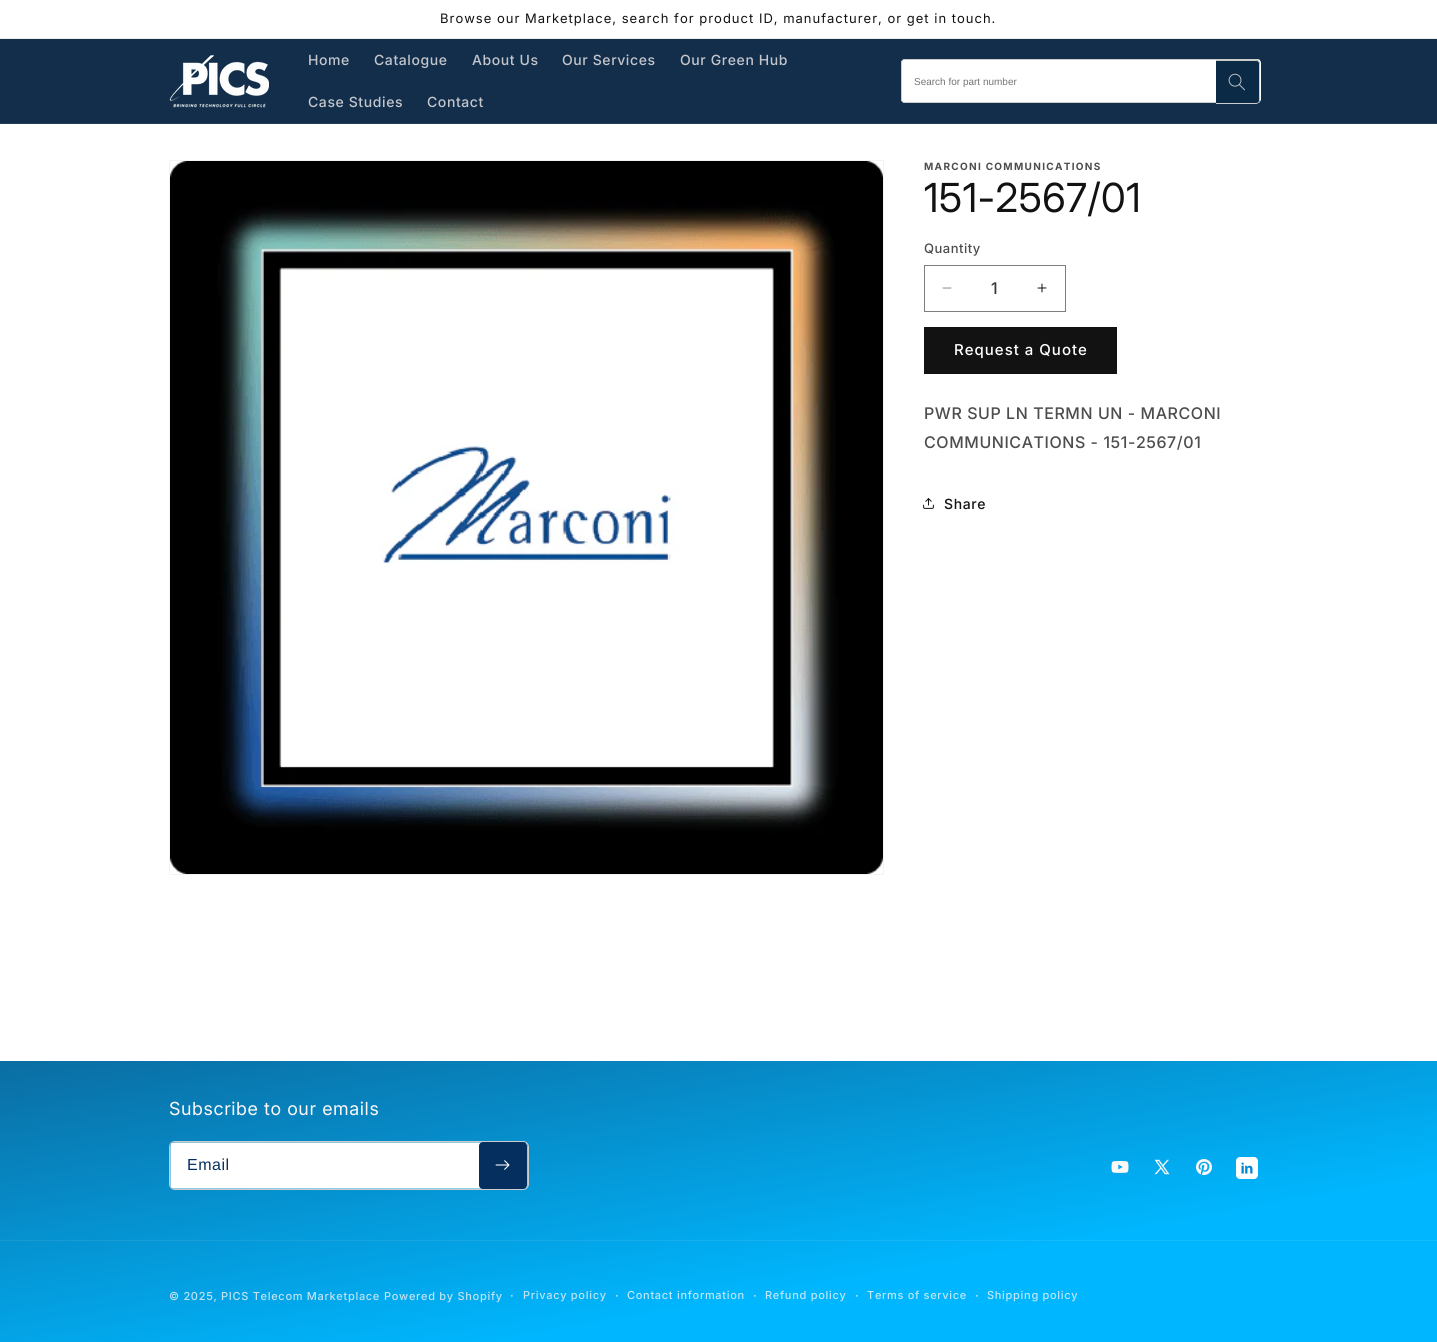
import math
import cairo

surface = cairo.ImageSurface(cairo.FORMAT_RGB24, 1437, 1342)
ctx = cairo.Context(surface)
options = cairo.FontOptions()
options.set_hint_metrics(cairo.HINT_METRICS_OFF)
options.set_hint_style(cairo.HINT_STYLE_NONE)
ctx.set_font_options(options)
ctx.set_miter_limit(4)


def set_color(code):
    ctx.set_source_rgb(*(v / 255 for v in bytes.fromhex(code[-6:])))


def draw_text(x, y, s, family, size, color, bold=False, italic=False):
    ctx.select_font_face(family, cairo.FONT_SLANT_ITALIC if italic else cairo.FONT_SLANT_NORMAL, cairo.FONT_WEIGHT_BOLD if bold else cairo.FONT_WEIGHT_NORMAL)
    ctx.set_font_size(size)
    set_color(color)
    ctx.move_to(x, y)
    ctx.show_text(s)


def draw_spaced(x, y, s, letter, word):
    ctx.move_to(x, y)
    for ch in s:
        ctx.show_text(ch)
        ctx.rel_move_to(letter + word * (ch == ' '), 0)


def fill_rect(x, y, w, h, color):
    set_color(color)
    ctx.rectangle(x, y, w, h)
    ctx.fill()


def rounded_rect(x, y, w, h, r):
    ctx.new_sub_path()
    for i, (u, v) in enumerate([(x + w - r, y + h - r), (x + r, y + h - r), (x + r, y + r), (x + w - r, y + r)]):
        ctx.arc(u, v, r, i * math.pi / 2, (i + 1) * math.pi / 2)
    ctx.close_path()


def draw_image(path, x, y, w, h):
    ctx.save()
    ctx.set_source_surface(cairo.ImageSurface.create_from_png(path), x, y)
    ctx.rectangle(x, y, w, h)
    ctx.fill()
    ctx.restore()


set_color("#ffffff")
ctx.paint()
fill_rect(0, 38, 1437, 1, "#ececec")
ctx.select_font_face("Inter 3")
ctx.set_font_size(13)
set_color("#121212")
draw_spaced(440, 23, "Browse our Marketplace, search for product ID, manufacturer, or get in touch.", 1, 0)
gradient = cairo.LinearGradient(582, -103, 855, 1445)
gradient.add_color_stop_rgba(0.26, 0.071, 0.18, 0.29, 1)
gradient.add_color_stop_rgba(0.44, 0.082, 0.153, 0.29, 1)
gradient.add_color_stop_rgba(0.9, 0, 0.718, 1, 1)
ctx.set_source(gradient)
ctx.rectangle(0, 39, 1437, 84)
ctx.fill()
fill_rect(0, 123, 1437, 1, "#253e58")
draw_image("assets/img1.png", 169, 55, 100, 53)
ctx.select_font_face("Inter Medium")
ctx.set_font_size(14)
set_color("#c4c6cd")
draw_spaced(308, 65, "Home", 0.6, 0)
draw_spaced(374, 65, "Catalogue", 0.6, 0)
draw_spaced(472, 65, "About Us", 0.6, 0)
draw_spaced(562, 65, "Our Services", 0.6, 0)
draw_spaced(680, 65, "Our Green Hub", 0.6, 0)
draw_spaced(308, 107, "Case Studies", 0.6, 0)
draw_spaced(427, 107, "Contact", 0.6, 0)
set_color("#ffffff")
rounded_rect(901, 59, 360, 44, 4)
ctx.fill()
set_color("#cccccc")
ctx.new_path()
ctx.move_to(905, 59)
ctx.curve_to(903, 59, 901, 61, 901, 63)
ctx.line_to(901, 99)
ctx.curve_to(901, 101, 903, 103, 905, 103)
ctx.line_to(1257, 103)
ctx.curve_to(1258, 103, 1259, 103, 1260, 102)
ctx.line_to(905, 102)
ctx.curve_to(903, 102, 902, 101, 902, 99)
ctx.line_to(902, 63)
ctx.curve_to(902, 61, 903, 60, 905, 60)
ctx.line_to(1260, 60)
ctx.line_to(1257, 59)
ctx.close_path()
ctx.fill()
draw_text(914, 85, "Search for part number", "Liberation Sans", 10, "#757575")
set_color("#0b2a45")
ctx.new_path()
ctx.move_to(1216, 60)
ctx.line_to(1256, 60)
ctx.curve_to(1258, 60, 1260, 62, 1260, 64)
ctx.line_to(1260, 100)
ctx.curve_to(1260, 102, 1258, 104, 1256, 104)
ctx.line_to(1216, 104)
ctx.close_path()
ctx.fill()
set_color("#cccccc")
ctx.set_fill_rule(cairo.FILL_RULE_EVEN_ODD)
ctx.new_path()
ctx.move_to(1216, 60)
ctx.line_to(1256, 60)
ctx.curve_to(1258, 60, 1260, 62, 1260, 64)
ctx.line_to(1260, 100)
ctx.curve_to(1260, 102, 1258, 104, 1256, 104)
ctx.line_to(1216, 104)
ctx.close_path()
ctx.move_to(1216, 61)
ctx.line_to(1256, 61)
ctx.curve_to(1258, 61, 1259, 62, 1259, 64)
ctx.line_to(1259, 100)
ctx.curve_to(1259, 102, 1258, 103, 1256, 103)
ctx.line_to(1216, 103)
ctx.close_path()
ctx.fill()
draw_image("assets/img2.png", 1228, 73, 17, 18)
ctx.rectangle(169.5, 160.5, 714, 714)
set_color("#f3f3f3")
ctx.set_line_width(1)
ctx.stroke()
draw_image("assets/img3.png", 170, 161, 713, 713)
ctx.select_font_face("Inter", cairo.FONT_SLANT_NORMAL, cairo.FONT_WEIGHT_BOLD)
set_color("#4d4d4d")
draw_spaced(924, 170, "MARCONI COMMUNICATIONS", 1.3, 0)
ctx.select_font_face("Inter")
ctx.set_font_size(40)
set_color("#121212")
draw_spaced(924, 212, "151-2567/01", 0.6, 0)
ctx.select_font_face("Inter Medium")
ctx.set_font_size(13)
set_color("#4d4d4d")
draw_spaced(924, 253, "Quantity", 0.5, 0)
draw_image("assets/img4.png", 942, 287, 10, 2)
draw_image("assets/img5.png", 1037, 283, 10, 10)
ctx.rectangle(924.5, 265.5, 141, 46)
set_color("#7d7d7d")
ctx.stroke()
draw_text(991, 294, "1", "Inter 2 Medium", 16, "#363636")
fill_rect(924, 327, 193, 47, "#121212")
ctx.select_font_face("Inter Medium")
ctx.set_font_size(15)
set_color("#ffffff")
draw_spaced(954, 355, "Request a Quote", 1, 0)
ctx.select_font_face("Inter 2 Medium")
ctx.set_font_size(16)
set_color("#4d4d4d")
draw_spaced(924, 419, "PWR SUP LN TERMN UN - MARCONI", 0.6, 0)
draw_spaced(924, 448, "COMMUNICATIONS - 151-2567/01", 0.6, 0)
draw_image("assets/img6.png", 923, 498, 11, 11)
ctx.select_font_face("Inter Medium")
ctx.set_font_size(14)
set_color("#121212")
draw_spaced(944, 509, "Share", 0.6, 0)
gradient = cairo.LinearGradient(582, -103, 855, 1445)
gradient.add_color_stop_rgba(0.26, 0.071, 0.18, 0.29, 1)
gradient.add_color_stop_rgba(0.44, 0.082, 0.153, 0.29, 1)
gradient.add_color_stop_rgba(0.9, 0, 0.718, 1, 1)
ctx.set_source(gradient)
ctx.rectangle(0, 1061, 1437, 281)
ctx.fill()
gradient = cairo.LinearGradient(582, -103, 855, 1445)
gradient.add_color_stop_rgba(0.26, 0.145, 0.243, 0.345, 1)
gradient.add_color_stop_rgba(0.44, 0.157, 0.22, 0.345, 1)
gradient.add_color_stop_rgba(0.9, 0.078, 0.737, 0.996, 1)
ctx.set_source(gradient)
ctx.rectangle(0, 1240, 1437, 1)
ctx.fill()
ctx.select_font_face("Inter 2")
ctx.set_font_size(18)
set_color("#fff8f8")
draw_spaced(169, 1115, "Subscribe to our emails", 0.6, 0)
rounded_rect(169.5, 1141.5, 359, 48, 5.5)
set_color("#cccccc")
ctx.stroke()
ctx.save()
ctx.set_fill_rule(cairo.FILL_RULE_WINDING)
rounded_rect(170, 1142, 358, 47, 5)
ctx.clip()
fill_rect(171, 1143, 356, 45, "#ffffff")
ctx.restore()
ctx.select_font_face("Liberation Sans")
ctx.set_font_size(16)
set_color("#052f5f")
draw_spaced(187, 1170, "Email", 0.5, 0)
ctx.set_source_rgba(1, 0.973, 0.973, 0.55)
ctx.new_path()
ctx.move_to(170, 1147)
ctx.line_to(170, 1184)
ctx.curve_to(170, 1185, 170, 1186, 171, 1187)
ctx.line_to(171, 1144)
ctx.close_path()
ctx.move_to(175, 1142)
ctx.line_to(172, 1143)
ctx.line_to(526, 1143)
ctx.line_to(523, 1142)
ctx.close_path()
ctx.move_to(528, 1147)
ctx.line_to(527, 1144)
ctx.line_to(527, 1187)
ctx.curve_to(528, 1186, 528, 1185, 528, 1184)
ctx.close_path()
ctx.move_to(523, 1189)
ctx.line_to(526, 1188)
ctx.line_to(172, 1188)
ctx.curve_to(173, 1189, 174, 1189, 175, 1189)
ctx.close_path()
ctx.fill()
ctx.save()
ctx.set_fill_rule(cairo.FILL_RULE_WINDING)
rounded_rect(170, 1142, 358, 47, 5)
ctx.clip()
set_color("#052f5f")
rounded_rect(479, 1142, 48, 47, 4)
ctx.fill()
ctx.restore()
draw_image("assets/img7.png", 495, 1160, 15, 10)
draw_image("assets/img8.png", 1111, 1161, 18, 12)
draw_image("assets/img9.png", 1154, 1159, 16, 16)
draw_image("assets/img10.png", 1196, 1159, 16, 16)
draw_image("assets/img11.png", 1236, 1157, 22, 22)
ctx.select_font_face("Inter Medium")
ctx.set_font_size(11)
set_color("#c0e3f3")
draw_spaced(169, 1300, "© 2025,", 0.7, 0)
draw_spaced(221, 1300, "PICS Telecom Marketplace", 0.7, 0)
draw_spaced(384, 1300, "Powered by Shopify", 0.7, 0)
ctx.set_font_size(12)
draw_spaced(510, 1300, "·", 0.7, 0)
ctx.set_font_size(11)
draw_spaced(523, 1299, "Privacy policy", 0.7, 0)
ctx.set_font_size(12)
draw_spaced(615, 1300, "·", 0.7, 0)
ctx.set_font_size(11)
set_color("#bfe7f9")
draw_spaced(627, 1299, "Contact information", 0.7, 0)
ctx.set_font_size(12)
draw_spaced(753, 1300, "·", 0.7, 0)
ctx.set_font_size(11)
draw_spaced(765, 1299, "Refund policy", 0.7, 0)
ctx.set_font_size(12)
draw_spaced(855, 1300, "·", 0.7, 0)
ctx.set_font_size(11)
draw_spaced(867, 1299, "Terms of service", 0.7, 0)
ctx.set_font_size(12)
draw_spaced(975, 1300, "·", 0.7, 0)
ctx.set_font_size(11)
draw_spaced(987, 1299, "Shipping policy", 0.7, 0)
surface.write_to_png("output.png")
